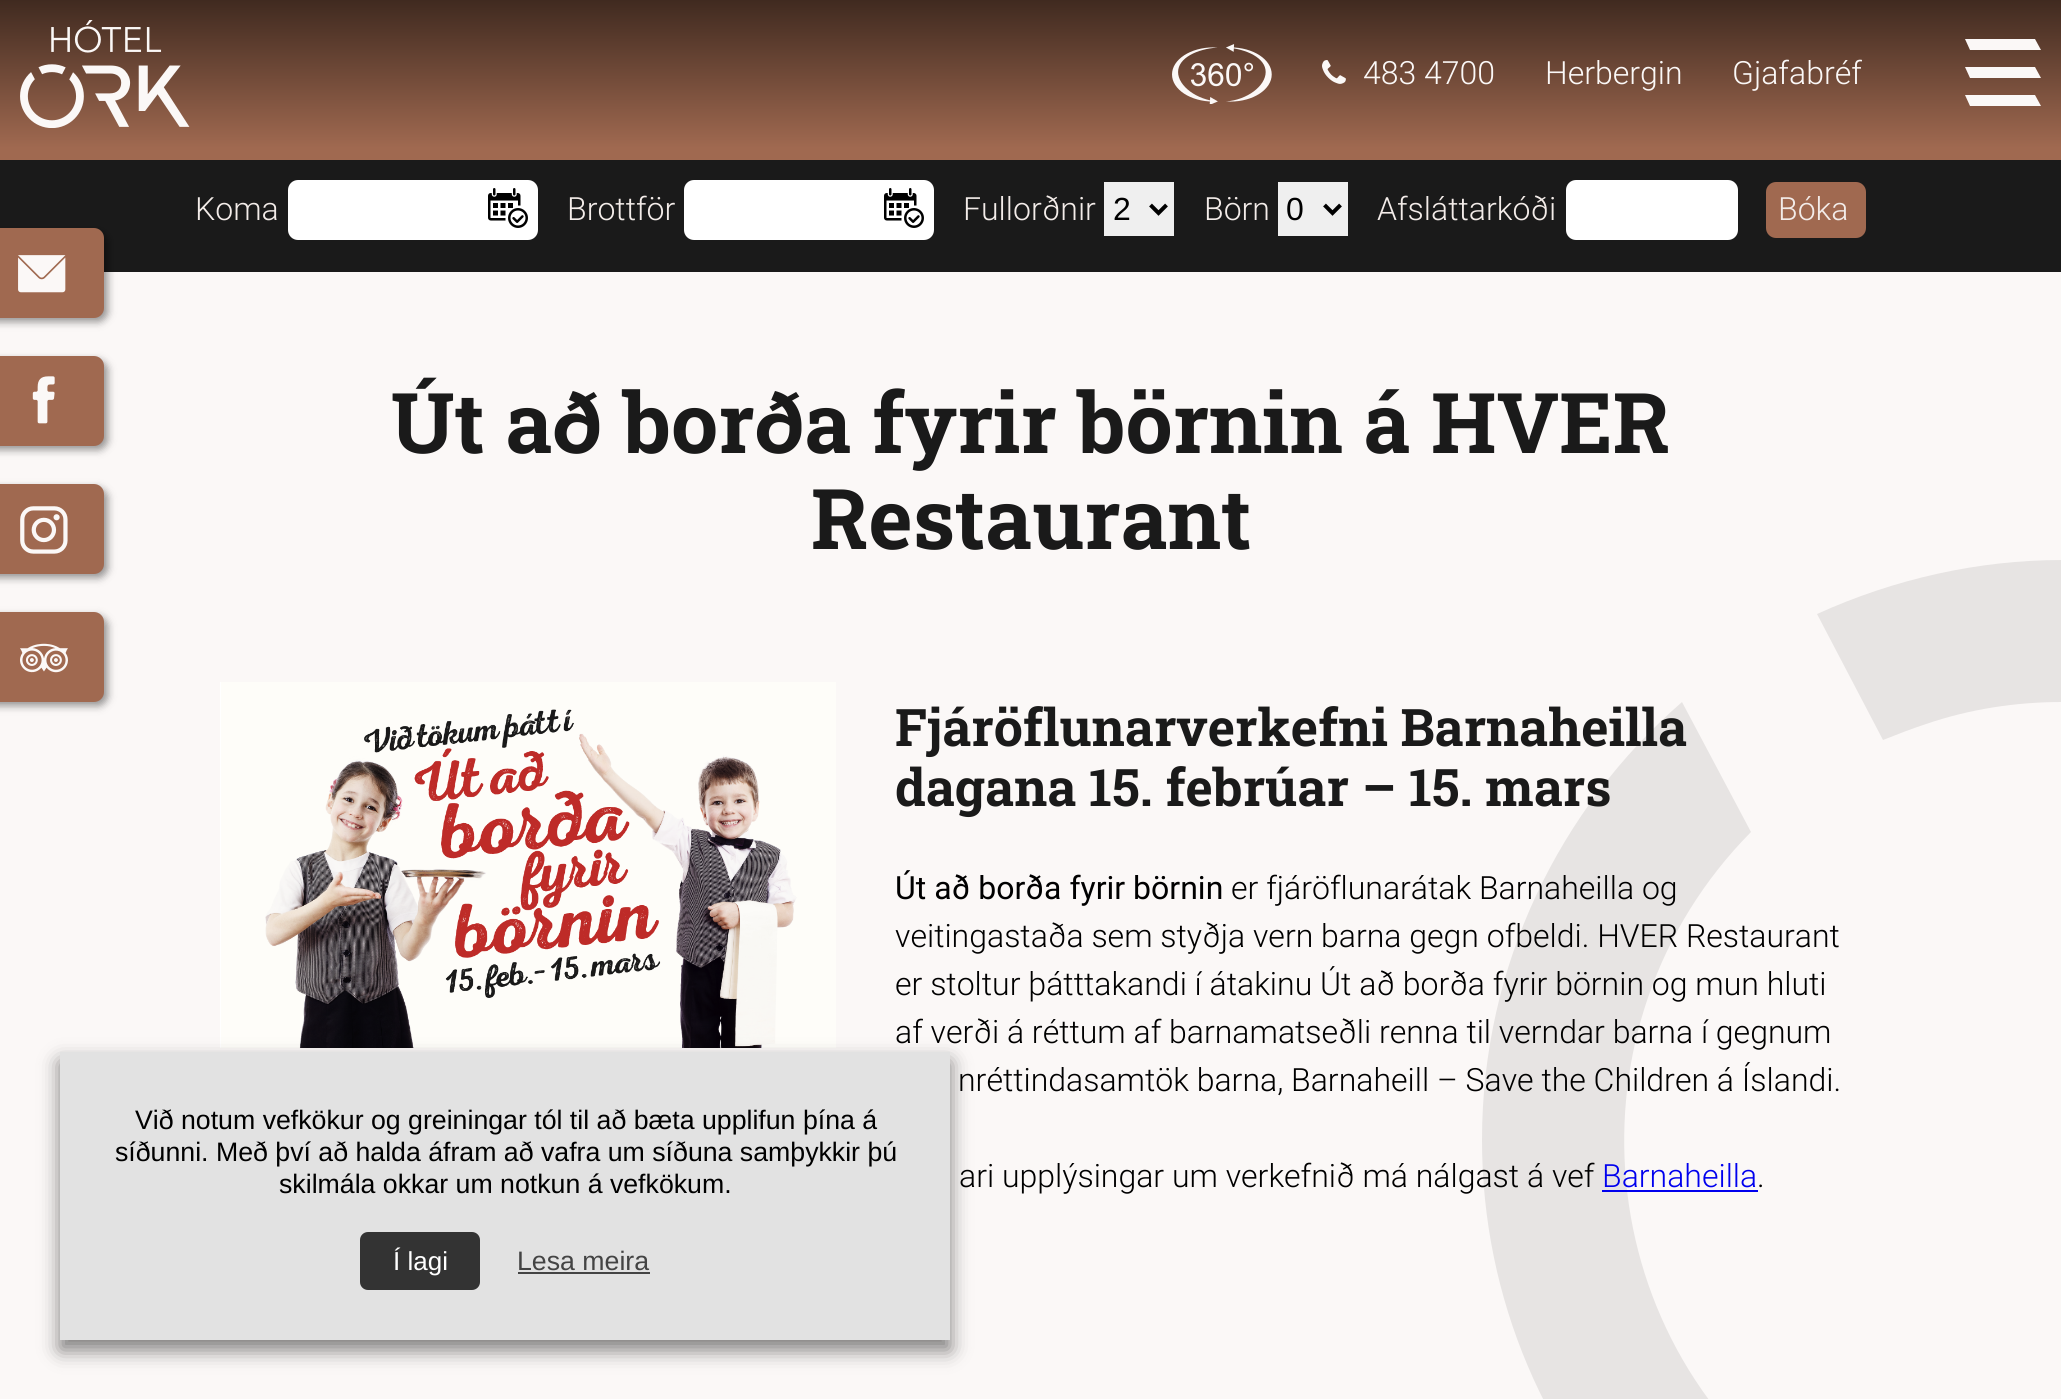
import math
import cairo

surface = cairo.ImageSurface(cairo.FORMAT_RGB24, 2061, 1399)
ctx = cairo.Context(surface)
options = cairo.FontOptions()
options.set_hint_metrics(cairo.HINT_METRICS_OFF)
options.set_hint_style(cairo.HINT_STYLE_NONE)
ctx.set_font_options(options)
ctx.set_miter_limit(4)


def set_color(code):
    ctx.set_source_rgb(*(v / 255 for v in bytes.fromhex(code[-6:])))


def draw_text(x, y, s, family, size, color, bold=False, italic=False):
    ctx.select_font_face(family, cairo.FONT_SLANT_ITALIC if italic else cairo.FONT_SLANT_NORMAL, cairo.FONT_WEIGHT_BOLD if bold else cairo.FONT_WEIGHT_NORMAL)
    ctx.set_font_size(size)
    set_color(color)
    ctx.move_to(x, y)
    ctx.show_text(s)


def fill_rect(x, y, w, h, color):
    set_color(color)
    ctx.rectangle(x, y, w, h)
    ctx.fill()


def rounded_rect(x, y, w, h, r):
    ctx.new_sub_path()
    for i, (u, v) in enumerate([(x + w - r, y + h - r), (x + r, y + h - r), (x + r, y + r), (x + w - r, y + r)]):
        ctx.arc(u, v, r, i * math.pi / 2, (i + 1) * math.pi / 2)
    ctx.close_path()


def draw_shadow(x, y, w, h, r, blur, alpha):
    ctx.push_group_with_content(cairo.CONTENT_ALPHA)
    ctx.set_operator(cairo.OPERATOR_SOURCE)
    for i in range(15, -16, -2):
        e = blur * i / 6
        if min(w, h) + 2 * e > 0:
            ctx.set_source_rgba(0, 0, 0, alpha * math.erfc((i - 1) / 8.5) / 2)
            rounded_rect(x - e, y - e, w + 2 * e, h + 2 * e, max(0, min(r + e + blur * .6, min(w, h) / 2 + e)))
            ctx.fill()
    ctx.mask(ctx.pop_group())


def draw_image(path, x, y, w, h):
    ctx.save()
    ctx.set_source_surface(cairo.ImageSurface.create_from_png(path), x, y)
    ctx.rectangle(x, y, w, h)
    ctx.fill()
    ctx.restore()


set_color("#fbf8f7")
ctx.paint()
gradient = cairo.LinearGradient(1031, 0, 1031, 148)
gradient.add_color_stop_rgba(0, 0.251, 0.165, 0.125, 1)
gradient.add_color_stop_rgba(1, 0.627, 0.412, 0.314, 1)
ctx.set_source(gradient)
ctx.rectangle(0, 0, 2061, 148)
ctx.fill()
draw_image("assets/img1.png", 20, 20, 170, 108)
draw_image("assets/img2.png", 1172, 44, 100, 60)
draw_image("assets/img3.png", 1322, 60, 24, 24)
draw_text(1363, 84, "483 4700", "Roboto Light", 32, "#fbf8f7")
draw_text(1545, 84, "Herbergin", "Roboto Light", 32, "#fbf8f7")
draw_text(1732, 84, "Gjafabréf", "Roboto Light", 32, "#fbf8f7")
ctx.set_fill_rule(cairo.FILL_RULE_EVEN_ODD)
ctx.new_path()
ctx.move_to(2035, 39)
ctx.line_to(1965, 39)
ctx.line_to(1970, 50)
ctx.line_to(2041, 50)
ctx.close_path()
ctx.fill()
ctx.new_path()
ctx.move_to(2035, 67)
ctx.line_to(1965, 67)
ctx.line_to(1970, 78)
ctx.line_to(2041, 78)
ctx.close_path()
ctx.fill()
ctx.new_path()
ctx.move_to(2035, 95)
ctx.line_to(1965, 95)
ctx.line_to(1970, 106)
ctx.line_to(2041, 106)
ctx.close_path()
ctx.fill()
fill_rect(0, 160, 2061, 112, "#1a1a1a")
draw_text(195, 220, "Koma", "Roboto Light", 32, "#f3ece9")
set_color("#ffffff")
rounded_rect(288, 180, 250, 60, 10)
ctx.fill()
draw_image("assets/img4.png", 488, 188, 40, 40)
draw_text(567, 220, "Brottför", "Roboto Light", 32, "#f3ece9")
set_color("#ffffff")
rounded_rect(684, 180, 250, 60, 10)
ctx.fill()
draw_image("assets/img4.png", 884, 188, 40, 40)
draw_text(963, 220, "Fullorðnir", "Roboto Light", 32, "#f3ece9")
fill_rect(1104, 182, 70, 54, "#efefef")
ctx.new_path()
ctx.move_to(1150.5, 205)
ctx.line_to(1158.5, 213)
ctx.line_to(1166.5, 205)
set_color("#000000")
ctx.set_line_width(4)
ctx.stroke()
draw_text(1113, 220, "2", "Liberation Sans", 32, "#000000")
draw_text(1204, 220, "Börn", "Roboto Light", 32, "#f3ece9")
fill_rect(1278, 182, 70, 54, "#efefef")
ctx.new_path()
ctx.move_to(1324.5, 205)
ctx.line_to(1332.5, 213)
ctx.line_to(1340.5, 205)
set_color("#000000")
ctx.stroke()
draw_text(1286, 220, "0", "Liberation Sans", 32, "#000000")
draw_text(1377, 220, "Afsláttarkóði", "Roboto Light", 32, "#f3ece9")
set_color("#ffffff")
rounded_rect(1566, 180, 172, 60, 10)
ctx.fill()
set_color("#a06950")
rounded_rect(1766, 182, 100, 56, 10)
ctx.fill()
draw_text(1778, 220, "Bóka", "Roboto Light", 32, "#f3ece9")
set_color("#000000")
draw_shadow(-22, 232, 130, 90, 10, 4, 0.4)
set_color("#a06950")
rounded_rect(-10, 228, 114, 90, 10)
ctx.fill()
draw_image("assets/img5.png", 18, 255, 48, 38)
set_color("#000000")
draw_shadow(-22, 360, 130, 90, 10, 4, 0.4)
set_color("#a06950")
rounded_rect(-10, 356, 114, 90, 10)
ctx.fill()
draw_image("assets/img6.png", 32, 376, 23, 48)
set_color("#000000")
draw_shadow(-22, 488, 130, 90, 10, 4, 0.4)
set_color("#a06950")
rounded_rect(-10, 484, 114, 90, 10)
ctx.fill()
draw_image("assets/img7.png", 20, 506, 48, 48)
set_color("#000000")
draw_shadow(-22, 616, 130, 90, 10, 4, 0.4)
set_color("#a06950")
rounded_rect(-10, 612, 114, 90, 10)
ctx.fill()
draw_image("assets/img8.png", 20, 643, 48, 30)
fill_rect(0, 148, 2061, 12, "#a06950")
draw_text(391, 453, "Út að borða fyrir börnin á HVER", "Roboto Slab", 83.75, "#1a1a1a", bold=True)
draw_text(811, 549, "Restaurant", "Roboto Slab", 83.75, "#1a1a1a", bold=True)
draw_image("assets/img9.png", 220, 682, 616, 366)
set_color("#e7e4e3")
ctx.new_path()
ctx.move_to(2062, 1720)
ctx.curve_to(1742, 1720, 1482, 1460, 1482, 1140)
ctx.curve_to(1482, 965, 1560, 808, 1682, 702)
ctx.line_to(1751, 832)
ctx.curve_to(1560, 1025, 1587, 1348, 1817, 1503)
ctx.curve_to(1889, 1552, 1975, 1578, 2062, 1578)
ctx.close_path()
ctx.fill()
draw_text(895, 746, "Fjáröflunarverkefni Barnaheilla", "Roboto Slab", 51.75, "#1a1a1a", bold=True)
draw_text(895, 806, "dagana 15. febrúar – 15. mars", "Roboto Slab", 51.75, "#1a1a1a", bold=True)
draw_text(895, 899, "Út að borða fyrir börnin", "Roboto", 32, "#000000")
draw_text(1231, 899, "er fjáröflunarátak Barnaheilla og", "Roboto Light", 32, "#000000")
draw_text(895, 947, "veitingastaða sem styðja vern barna gegn ofbeldi. HVER Restaurant", "Roboto Light", 32, "#000000")
draw_text(895, 995, "er stoltur þátttakandi í átakinu Út að borða fyrir börnin og mun hluti", "Roboto Light", 32, "#000000")
draw_text(895, 1043, "af verði á réttum af barnamatseðli renna til verndar barna í gegnum", "Roboto Light", 32, "#000000")
draw_text(958, 1091, "nréttindasamtök barna, Barnaheill – Save the Children á Íslandi.", "Roboto Light", 32, "#000000")
draw_text(959, 1187, "ari upplýsingar um verkefnið má nálgast á vef", "Roboto Light", 32, "#000000")
draw_text(1602, 1187, "Barnaheilla", "Roboto Light", 32, "#0000ee")
fill_rect(1602, 1190, 156, 2, "#0000ee")
draw_text(1757, 1187, ".", "Roboto Light", 32, "#000000")
set_color("#e7e4e3")
ctx.new_path()
ctx.move_to(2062, 560)
ctx.line_to(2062, 702)
ctx.curve_to(2016, 702, 1970, 709, 1926, 724)
ctx.curve_to(1911, 729, 1898, 734, 1883, 740)
ctx.line_to(1817, 614)
ctx.curve_to(1894, 579, 1978, 560, 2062, 560)
ctx.close_path()
ctx.fill()
set_color("#000000")
draw_shadow(60, 1062, 890, 288, 0, 10, 0.5)
fill_rect(60, 1052, 890, 288, "#e2e2e2")
draw_text(135, 1129, "Við notum vefkökur og greiningar tól til að bæta upplifun þína á", "Liberation Sans", 26.7, "#000000")
draw_text(115, 1161, "síðunni. Með því að halda áfram að vafra um síðuna samþykkir þú", "Liberation Sans", 26.7, "#000000")
draw_text(279, 1193, "skilmála okkar um notkun á vefkökum.", "Liberation Sans", 26.7, "#000000")
set_color("#333333")
rounded_rect(360, 1232, 120, 58, 8)
ctx.fill()
draw_text(393, 1270, "Í lagi", "Liberation Sans", 26, "#ffffff")
draw_text(517, 1270, "Lesa meira", "Liberation Sans", 26.7, "#444444")
fill_rect(518, 1272, 132, 2, "#444444")
surface.write_to_png("output.png")
